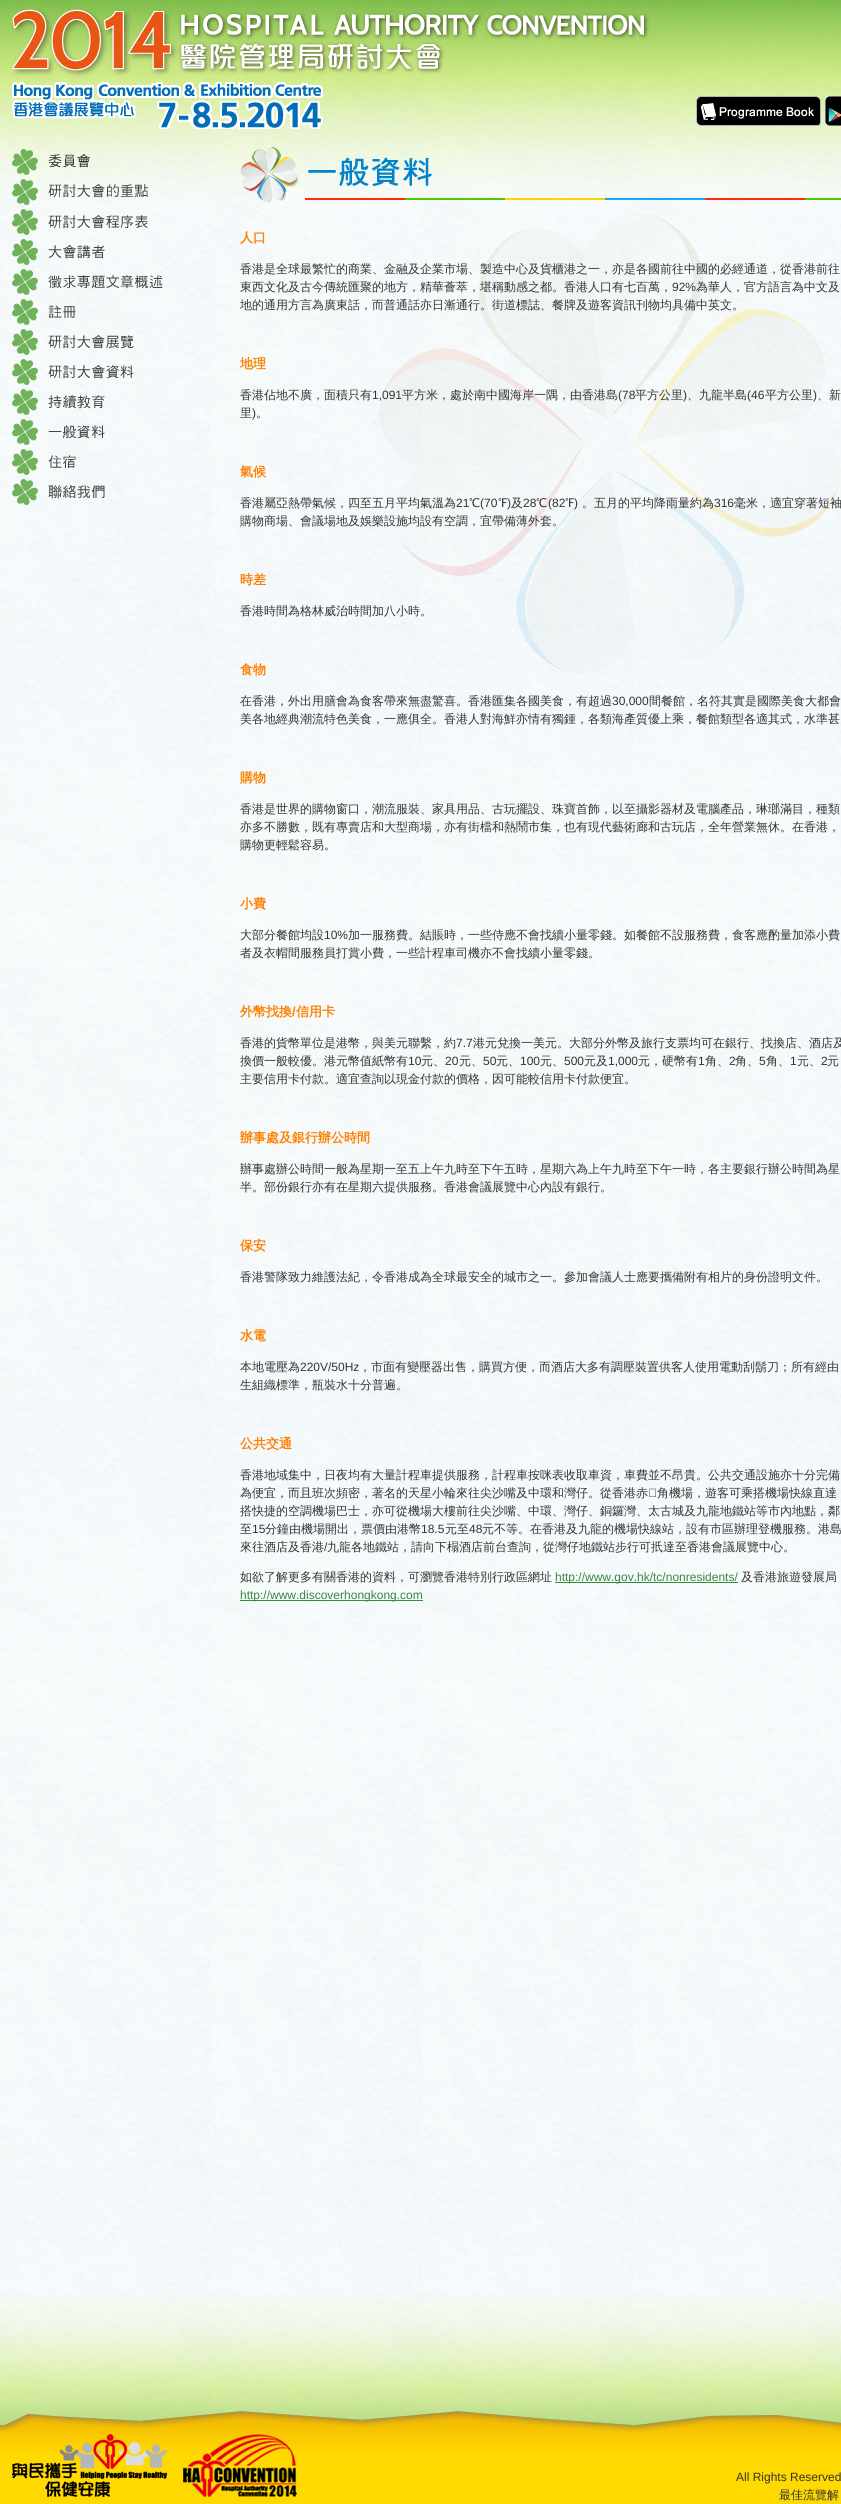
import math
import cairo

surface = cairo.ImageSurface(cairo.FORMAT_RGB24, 841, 2504)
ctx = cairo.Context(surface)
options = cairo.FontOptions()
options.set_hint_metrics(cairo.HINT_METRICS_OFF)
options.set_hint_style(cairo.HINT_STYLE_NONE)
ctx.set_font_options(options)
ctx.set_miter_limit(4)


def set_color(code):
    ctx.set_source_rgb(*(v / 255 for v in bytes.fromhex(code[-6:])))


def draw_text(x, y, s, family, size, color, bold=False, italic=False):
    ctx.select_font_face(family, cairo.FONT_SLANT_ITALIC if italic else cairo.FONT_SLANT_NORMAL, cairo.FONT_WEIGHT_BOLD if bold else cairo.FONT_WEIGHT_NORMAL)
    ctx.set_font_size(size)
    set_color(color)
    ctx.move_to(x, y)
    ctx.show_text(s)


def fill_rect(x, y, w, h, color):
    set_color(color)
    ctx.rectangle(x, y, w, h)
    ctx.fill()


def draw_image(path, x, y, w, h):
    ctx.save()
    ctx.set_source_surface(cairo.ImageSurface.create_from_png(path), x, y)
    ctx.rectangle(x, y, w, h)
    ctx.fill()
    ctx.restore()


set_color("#ffffff")
ctx.paint()
draw_image("assets/img1.png", 0, 0, 841, 2426)
draw_image("assets/img2.png", 0, 0, 841, 198)
draw_image("assets/img3.png", 12, 9, 637, 120)
draw_image("assets/img4.png", 696, 96, 125, 30)
draw_image("assets/img5.png", 825, 96, 16, 30)
draw_image("assets/img6.png", 12, 149, 79, 26)
draw_image("assets/img7.png", 12, 179, 136, 26)
draw_image("assets/img8.png", 12, 209, 136, 26)
draw_image("assets/img9.png", 12, 239, 93, 26)
draw_image("assets/img10.png", 12, 269, 151, 26)
draw_image("assets/img11.png", 12, 299, 64, 26)
draw_image("assets/img12.png", 12, 329, 122, 26)
draw_image("assets/img13.png", 12, 359, 122, 26)
draw_image("assets/img14.png", 12, 389, 93, 26)
draw_image("assets/img15.png", 12, 419, 93, 26)
draw_image("assets/img16.png", 12, 449, 64, 26)
draw_image("assets/img17.png", 12, 479, 93, 26)
draw_image("assets/img18.png", 240, 147, 601, 56)
draw_image("assets/img19.png", 379, 213, 462, 461)
draw_text(240, 242, "人口", "WenQuanYi Zen Hei", 13, "#ff7f00", bold=True)
draw_text(240, 273, "香港是全球最繁忙的商業、金融及企業市場、製造中心及貨櫃港之一，亦是各國前往中國的必經通道，從香港前往", "WenQuanYi Zen Hei Medium", 12, "#333333")
draw_text(240, 291, "東西文化及古今傳統匯聚的地方，精華薈萃，堪稱動感之都。香港人口有七百萬，", "WenQuanYi Zen Hei Medium", 12, "#333333")
draw_text(672, 291, "92%", "Liberation Sans", 12, "#333333")
draw_text(696, 291, "為華人，官方語言為中文及", "WenQuanYi Zen Hei Medium", 12, "#333333")
draw_text(240, 309, "地的通用方言為廣東話，而普通話亦日漸通行。街道標誌、餐牌及遊客資訊刊物均具備中英文。", "WenQuanYi Zen Hei Medium", 12, "#333333")
draw_text(240, 368, "地理", "WenQuanYi Zen Hei", 13, "#ff7f00", bold=True)
draw_text(240, 399, "香港佔地不廣，面積只有", "WenQuanYi Zen Hei Medium", 12, "#333333")
draw_text(372, 399, "1,091", "Liberation Sans", 12, "#333333")
draw_text(402, 399, "平方米，處於南中國海岸一隅，由香港島", "WenQuanYi Zen Hei Medium", 12, "#333333")
draw_text(618, 399, "(78", "Liberation Sans", 12, "#333333")
draw_text(635, 399, "平方公里", "WenQuanYi Zen Hei Medium", 12, "#333333")
draw_text(683, 399, ")", "Liberation Sans", 12, "#333333")
draw_text(687, 399, "、九龍半島", "WenQuanYi Zen Hei Medium", 12, "#333333")
draw_text(747, 399, "(46", "Liberation Sans", 12, "#333333")
draw_text(765, 399, "平方公里", "WenQuanYi Zen Hei Medium", 12, "#333333")
draw_text(813, 399, ")", "Liberation Sans", 12, "#333333")
draw_text(817, 399, "、新", "WenQuanYi Zen Hei Medium", 12, "#333333")
draw_text(240, 417, "里", "WenQuanYi Zen Hei Medium", 12, "#333333")
draw_text(252, 417, ")", "Liberation Sans", 12, "#333333")
draw_text(256, 417, "。", "WenQuanYi Zen Hei Medium", 12, "#333333")
draw_text(240, 476, "氣候", "WenQuanYi Zen Hei", 13, "#ff7f00", bold=True)
draw_text(240, 507, "香港屬亞熱帶氣候，四至五月平均氣溫為", "WenQuanYi Zen Hei Medium", 12, "#333333")
draw_text(456, 507, "21", "Liberation Sans", 12, "#333333")
draw_text(469, 507, "℃", "WenQuanYi Zen Hei Medium", 12, "#333333")
draw_text(480, 507, "(70", "Liberation Sans", 12, "#333333")
draw_text(498, 507, "℉", "WenQuanYi Zen Hei Medium", 12, "#333333")
draw_text(507, 507, ")", "Liberation Sans", 12, "#333333")
draw_text(511, 507, "及", "WenQuanYi Zen Hei Medium", 12, "#333333")
draw_text(523, 507, "28", "Liberation Sans", 12, "#333333")
draw_text(536, 507, "℃", "WenQuanYi Zen Hei Medium", 12, "#333333")
draw_text(548, 507, "(82", "Liberation Sans", 12, "#333333")
draw_text(565, 507, "℉", "WenQuanYi Zen Hei Medium", 12, "#333333")
draw_text(574, 507, ")", "Liberation Sans", 12, "#333333")
draw_text(582, 507, "。五月的平均降雨量約為", "WenQuanYi Zen Hei Medium", 12, "#333333")
draw_text(714, 507, "316", "Liberation Sans", 12, "#333333")
draw_text(734, 507, "毫米，適宜穿著短袖", "WenQuanYi Zen Hei Medium", 12, "#333333")
draw_text(240, 525, "購物商場、會議場地及娛樂設施均設有空調，宜帶備薄外套。", "WenQuanYi Zen Hei Medium", 12, "#333333")
draw_text(240, 584, "時差", "WenQuanYi Zen Hei", 13, "#ff7f00", bold=True)
draw_text(240, 615, "香港時間為格林威治時間加八小時。", "WenQuanYi Zen Hei Medium", 12, "#333333")
draw_text(240, 674, "食物", "WenQuanYi Zen Hei", 13, "#ff7f00", bold=True)
draw_text(240, 705, "在香港，外出用膳會為食客帶來無盡驚喜。香港匯集各國美食，有超過", "WenQuanYi Zen Hei Medium", 12, "#333333")
draw_text(612, 705, "30,000", "Liberation Sans", 12, "#333333")
draw_text(649, 705, "間餐館，名符其實是國際美食大都會", "WenQuanYi Zen Hei Medium", 12, "#333333")
draw_text(240, 723, "美各地經典潮流特色美食，一應俱全。香港人對海鮮亦情有獨鍾，各類海產質優上乘，餐館類型各適其式，水準甚", "WenQuanYi Zen Hei Medium", 12, "#333333")
draw_text(240, 782, "購物", "WenQuanYi Zen Hei", 13, "#ff7f00", bold=True)
draw_text(240, 813, "香港是世界的購物窗口，潮流服裝、家具用品、古玩擺設、珠寶首飾，以至攝影器材及電腦產品，琳瑯滿目，種類", "WenQuanYi Zen Hei Medium", 12, "#333333")
draw_text(240, 831, "亦多不勝數，既有專賣店和大型商場，亦有街檔和熱鬧市集，也有現代藝術廊和古玩店，全年營業無休。在香港，", "WenQuanYi Zen Hei Medium", 12, "#333333")
draw_text(240, 849, "購物更輕鬆容易。", "WenQuanYi Zen Hei Medium", 12, "#333333")
draw_text(240, 908, "小費", "WenQuanYi Zen Hei", 13, "#ff7f00", bold=True)
draw_text(240, 939, "大部分餐館均設", "WenQuanYi Zen Hei Medium", 12, "#333333")
draw_text(324, 939, "10%", "Liberation Sans", 12, "#333333")
draw_text(348, 939, "加一服務費。結賬時，一些侍應不會找續小量零錢。如餐館不設服務費，食客應酌量加添小費", "WenQuanYi Zen Hei Medium", 12, "#333333")
draw_text(240, 957, "者及衣帽間服務員打賞小費，一些計程車司機亦不會找續小量零錢。", "WenQuanYi Zen Hei Medium", 12, "#333333")
draw_text(240, 1016, "外幣找換", "WenQuanYi Zen Hei", 13, "#ff7f00", bold=True)
draw_text(292, 1016, "/", "Liberation Sans", 13, "#ff7f00", bold=True)
draw_text(296, 1016, "信用卡", "WenQuanYi Zen Hei", 13, "#ff7f00", bold=True)
draw_text(240, 1047, "香港的貨幣單位是港幣，與美元聯繫，約", "WenQuanYi Zen Hei Medium", 12, "#333333")
draw_text(456, 1047, "7.7", "Liberation Sans", 12, "#333333")
draw_text(473, 1047, "港元兌換一美元。大部分外幣及旅行支票均可在銀行、找換店、酒店及", "WenQuanYi Zen Hei Medium", 12, "#333333")
draw_text(240, 1065, "換價一般較優。港元幣值紙幣有", "WenQuanYi Zen Hei Medium", 12, "#333333")
draw_text(408, 1065, "10", "Liberation Sans", 12, "#333333")
draw_text(421, 1065, "元、", "WenQuanYi Zen Hei Medium", 12, "#333333")
draw_text(445, 1065, "20", "Liberation Sans", 12, "#333333")
draw_text(459, 1065, "元、", "WenQuanYi Zen Hei Medium", 12, "#333333")
draw_text(483, 1065, "50", "Liberation Sans", 12, "#333333")
draw_text(496, 1065, "元、", "WenQuanYi Zen Hei Medium", 12, "#333333")
draw_text(520, 1065, "100", "Liberation Sans", 12, "#333333")
draw_text(540, 1065, "元、", "WenQuanYi Zen Hei Medium", 12, "#333333")
draw_text(564, 1065, "500", "Liberation Sans", 12, "#333333")
draw_text(584, 1065, "元及", "WenQuanYi Zen Hei Medium", 12, "#333333")
draw_text(608, 1065, "1,000", "Liberation Sans", 12, "#333333")
draw_text(638, 1065, "元，硬幣有", "WenQuanYi Zen Hei Medium", 12, "#333333")
draw_text(698, 1065, "1", "Liberation Sans", 12, "#333333")
draw_text(705, 1065, "角、", "WenQuanYi Zen Hei Medium", 12, "#333333")
draw_text(729, 1065, "2", "Liberation Sans", 12, "#333333")
draw_text(735, 1065, "角、", "WenQuanYi Zen Hei Medium", 12, "#333333")
draw_text(759, 1065, "5", "Liberation Sans", 12, "#333333")
draw_text(766, 1065, "角、", "WenQuanYi Zen Hei Medium", 12, "#333333")
draw_text(790, 1065, "1", "Liberation Sans", 12, "#333333")
draw_text(797, 1065, "元、", "WenQuanYi Zen Hei Medium", 12, "#333333")
draw_text(821, 1065, "2", "Liberation Sans", 12, "#333333")
draw_text(827, 1065, "元", "WenQuanYi Zen Hei Medium", 12, "#333333")
draw_text(240, 1083, "主要信用卡付款。適宜查詢以現金付款的價格，因可能較信用卡付款便宜。", "WenQuanYi Zen Hei Medium", 12, "#333333")
draw_text(240, 1142, "辦事處及銀行辦公時間", "WenQuanYi Zen Hei", 13, "#ff7f00", bold=True)
draw_text(240, 1173, "辦事處辦公時間一般為星期一至五上午九時至下午五時，星期六為上午九時至下午一時，各主要銀行辦公時間為星", "WenQuanYi Zen Hei Medium", 12, "#333333")
draw_text(240, 1191, "半。部份銀行亦有在星期六提供服務。香港會議展覽中心內設有銀行。", "WenQuanYi Zen Hei Medium", 12, "#333333")
draw_text(240, 1250, "保安", "WenQuanYi Zen Hei", 13, "#ff7f00", bold=True)
draw_text(240, 1281, "香港警隊致力維護法紀，令香港成為全球最安全的城市之一。參加會議人士應要攜備附有相片的身份證明文件。", "WenQuanYi Zen Hei Medium", 12, "#333333")
draw_text(240, 1340, "水電", "WenQuanYi Zen Hei", 13, "#ff7f00", bold=True)
draw_text(240, 1371, "本地電壓為", "WenQuanYi Zen Hei Medium", 12, "#333333")
draw_text(300, 1371, "220V/50Hz", "Liberation Sans", 12, "#333333")
draw_text(359, 1371, "，市面有變壓器出售，購買方便，而酒店大多有調壓裝置供客人使用電動刮鬍刀；所有經由", "WenQuanYi Zen Hei Medium", 12, "#333333")
draw_text(240, 1389, "生組織標準，瓶裝水十分普遍。", "WenQuanYi Zen Hei Medium", 12, "#333333")
draw_text(240, 1448, "公共交通", "WenQuanYi Zen Hei", 13, "#ff7f00", bold=True)
draw_text(240, 1479, "香港地域集中，日夜均有大量計程車提供服務，計程車按咪表收取車資，車費並不昂貴。公共交通設施亦十分完備", "WenQuanYi Zen Hei Medium", 12, "#333333")
draw_text(240, 1497, "為便宜，而且班次頻密，著名的天星小輪來往尖沙嘴及中環和灣仔。從香港赤", "WenQuanYi Zen Hei Medium", 12, "#333333")
draw_image("assets/img20.png", 649, 1488, 7, 9)
draw_text(657, 1497, "角機場，遊客可乘搭機場快線直達", "WenQuanYi Zen Hei Medium", 12, "#333333")
draw_text(240, 1515, "搭快捷的空調機場巴士，亦可從機場大樓前往尖沙嘴、中環、灣仔、銅鑼灣、太古城及九龍地鐵站等市內地點，鄰", "WenQuanYi Zen Hei Medium", 12, "#333333")
draw_text(240, 1533, "至", "WenQuanYi Zen Hei Medium", 12, "#333333")
draw_text(252, 1533, "15", "Liberation Sans", 12, "#333333")
draw_text(265, 1533, "分鐘由機場開出，票價由港幣", "WenQuanYi Zen Hei Medium", 12, "#333333")
draw_text(421, 1533, "18.5", "Liberation Sans", 12, "#333333")
draw_text(445, 1533, "元至", "WenQuanYi Zen Hei Medium", 12, "#333333")
draw_text(469, 1533, "48", "Liberation Sans", 12, "#333333")
draw_text(482, 1533, "元不等。在香港及九龍的機場快線站，設有市區辦理登機服務。港島", "WenQuanYi Zen Hei Medium", 12, "#333333")
draw_text(240, 1551, "來往酒店及香港", "WenQuanYi Zen Hei Medium", 12, "#333333")
draw_text(324, 1551, "/", "Liberation Sans", 12, "#333333")
draw_text(327, 1551, "九龍各地鐵站，請向下榻酒店前台查詢，從灣仔地鐵站步行可扺達至香港會議展覽中心。", "WenQuanYi Zen Hei Medium", 12, "#333333")
draw_text(240, 1581, "如欲了解更多有關香港的資料，可瀏覽香港特別行政區網址", "WenQuanYi Zen Hei Medium", 12, "#333333")
fill_rect(555, 1582, 183, 1, "#36893d")
draw_text(555, 1581, "http://www.gov.hk/tc/nonresidents/", "Liberation Sans", 12, "#36893d")
draw_text(741, 1581, "及香港旅遊發展局", "WenQuanYi Zen Hei Medium", 12, "#333333")
fill_rect(240, 1600, 183, 1, "#36893d")
draw_text(240, 1599, "http://www.discoverhongkong.com", "Liberation Sans", 12, "#36893d")
draw_image("assets/img21.png", 0, 2294, 841, 210)
draw_image("assets/img22.png", 12, 2434, 155, 63)
draw_image("assets/img23.png", 183, 2434, 114, 63)
draw_text(736, 2481, "All Rights Reserved", "Liberation Sans", 12, "#333333")
draw_text(779, 2499, "最佳流覽解", "WenQuanYi Zen Hei Medium", 12, "#333333")
surface.write_to_png("output.png")
